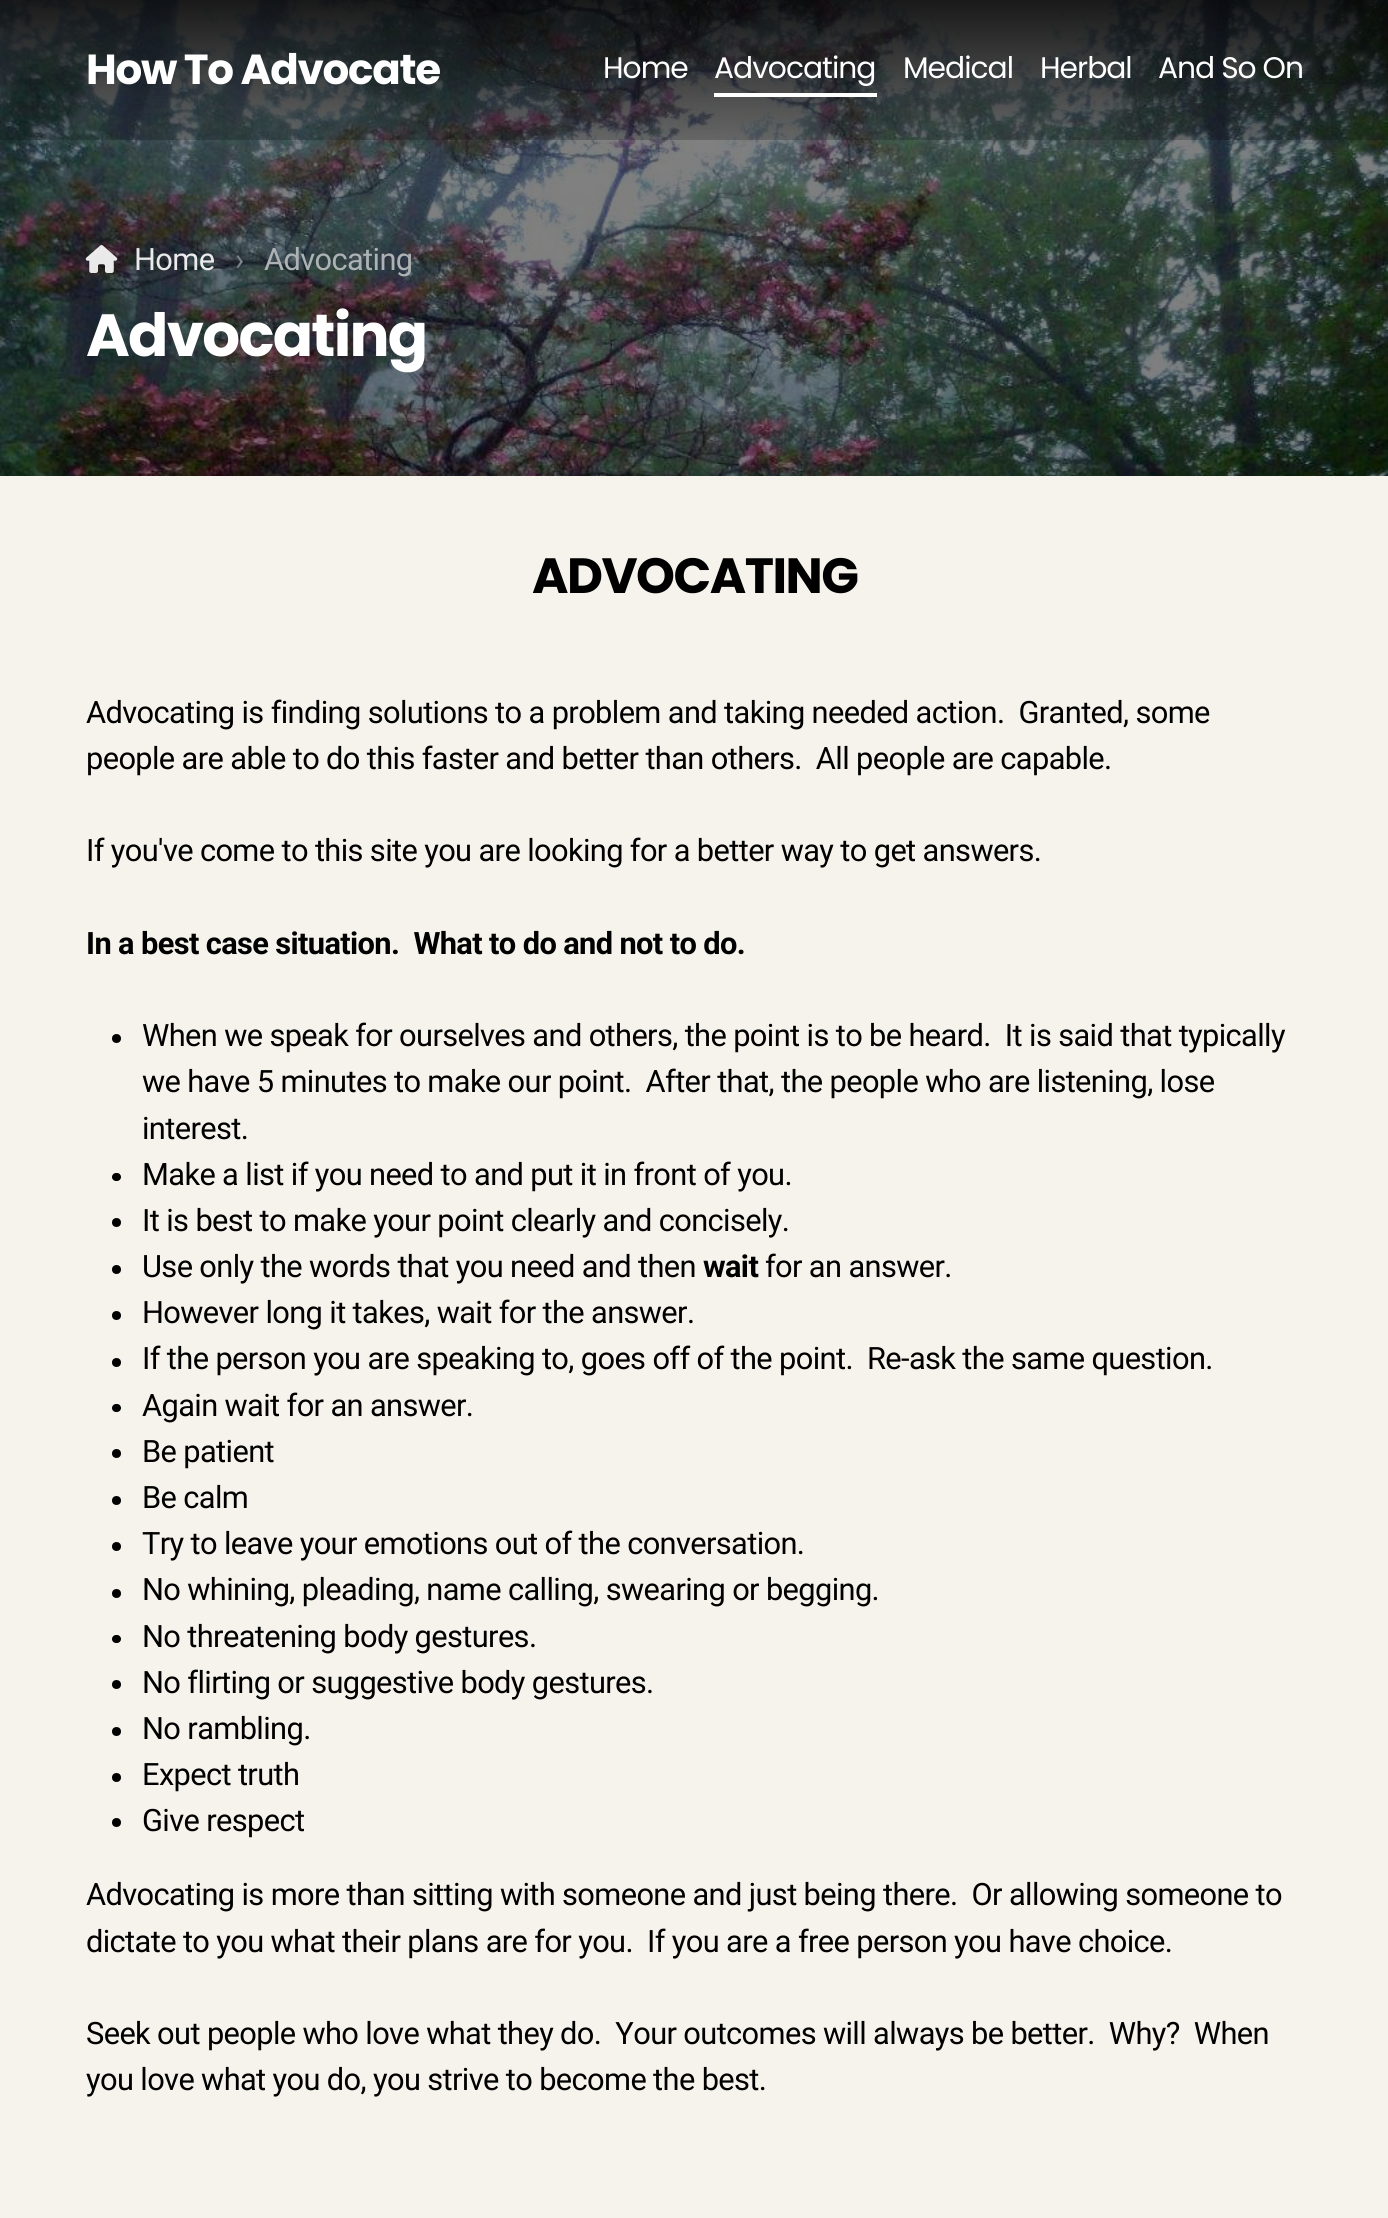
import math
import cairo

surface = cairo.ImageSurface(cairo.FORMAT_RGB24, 1388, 2218)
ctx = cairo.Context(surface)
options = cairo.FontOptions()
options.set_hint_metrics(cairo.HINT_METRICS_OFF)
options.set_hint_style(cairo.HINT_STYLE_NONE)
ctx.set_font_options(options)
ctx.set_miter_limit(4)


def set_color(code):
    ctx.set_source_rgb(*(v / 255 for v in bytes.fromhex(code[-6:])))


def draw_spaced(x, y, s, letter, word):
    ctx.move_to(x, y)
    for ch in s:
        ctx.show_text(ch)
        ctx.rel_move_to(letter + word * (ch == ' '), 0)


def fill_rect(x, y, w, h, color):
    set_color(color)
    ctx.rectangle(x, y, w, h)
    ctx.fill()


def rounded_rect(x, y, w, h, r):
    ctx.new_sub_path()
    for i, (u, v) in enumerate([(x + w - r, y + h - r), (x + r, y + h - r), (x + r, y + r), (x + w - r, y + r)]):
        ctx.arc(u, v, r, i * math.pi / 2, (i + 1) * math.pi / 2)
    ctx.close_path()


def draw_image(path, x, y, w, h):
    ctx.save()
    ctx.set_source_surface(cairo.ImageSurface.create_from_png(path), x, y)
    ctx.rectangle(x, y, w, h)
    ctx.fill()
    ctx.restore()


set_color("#ffffff")
ctx.paint()
draw_image("assets/img1.png", 0, 0, 1388, 476)
ctx.select_font_face("Poppins", cairo.FONT_SLANT_NORMAL, cairo.FONT_WEIGHT_BOLD)
ctx.set_font_size(42)
set_color("#ffffff")
draw_spaced(86, 84, "How To Advocate", -1.25, 0)
ctx.select_font_face("Poppins")
ctx.set_font_size(29.75)
draw_spaced(603, 78, "Home", -1, 0)
fill_rect(714, 93, 163, 4, "#ffffff")
draw_spaced(714, 78, "Advocating", -1, 0)
draw_spaced(903, 78, "Medical", -1, 0)
draw_spaced(1040, 78, "Herbal", -1, 0)
draw_spaced(1158, 78, "And So On", -1, 0)
draw_image("assets/img2.png", 85, 245, 33, 28)
ctx.select_font_face("Roboto")
ctx.set_font_size(30.8)
set_color("#eaeaeb")
draw_spaced(134, 270, "Home", -0.62, 0)
set_color("#7f858a")
draw_spaced(235, 270, "›", -0.62, 0)
set_color("#adb3b5")
draw_spaced(264, 270, "Advocating", -0.62, 0)
ctx.select_font_face("Poppins", cairo.FONT_SLANT_NORMAL, cairo.FONT_WEIGHT_BOLD)
ctx.set_font_size(59.5)
set_color("#ffffff")
draw_spaced(86, 356, "Advocating", -1.75, 0)
fill_rect(0, 476, 1388, 1742, "#f5f3eb")
ctx.set_font_size(49.5)
set_color("#000000")
draw_spaced(532, 593, "ADVOCATING", -1.5, 0)
ctx.select_font_face("Roboto")
ctx.set_font_size(30.8)
draw_spaced(86, 723, "Advocating is finding solutions to a problem and taking needed action.  Granted, some", -0.62, 0)
draw_spaced(86, 769, "people are able to do this faster and better than others.  All people are capable.", -0.62, 0)
draw_spaced(86, 861, "If you've come to this site you are looking for a better way to get answers.", -0.62, 0)
ctx.select_font_face("Roboto", cairo.FONT_SLANT_NORMAL, cairo.FONT_WEIGHT_BOLD)
draw_spaced(86, 954, "In a best case situation.  What to do and not to do.", -0.62, 0)
ctx.new_path()
ctx.arc(116.5, 1038.5, 4.5, 0, 2 * math.pi)
ctx.fill()
ctx.select_font_face("Roboto")
draw_spaced(142, 1046, "When we speak for ourselves and others, the point is to be heard.  It is said that typically", -0.62, 0)
draw_spaced(142, 1092, "we have 5 minutes to make our point.  After that, the people who are listening, lose", -0.62, 0)
draw_spaced(142, 1139, "interest.", -0.62, 0)
rounded_rect(112, 1173, 9, 8, 4)
ctx.fill()
draw_spaced(142, 1185, "Make a list if you need to and put it in front of you.", -0.62, 0)
ctx.new_path()
ctx.arc(116.5, 1222.5, 4.5, 0, 2 * math.pi)
ctx.fill()
draw_spaced(142, 1231, "It is best to make your point clearly and concisely.", -0.62, 0)
ctx.new_path()
ctx.arc(116.5, 1269.5, 4.5, 0, 2 * math.pi)
ctx.fill()
draw_spaced(142, 1277, "Use only the words that you need and then", -0.62, 0)
ctx.select_font_face("Roboto", cairo.FONT_SLANT_NORMAL, cairo.FONT_WEIGHT_BOLD)
draw_spaced(703, 1277, "wait", -0.62, 0)
ctx.select_font_face("Roboto")
draw_spaced(765, 1277, "for an answer.", -0.62, 0)
ctx.new_path()
ctx.arc(116.5, 1315.5, 4.5, 0, 2 * math.pi)
ctx.fill()
draw_spaced(142, 1323, "However long it takes, wait for the answer.", -0.62, 0)
ctx.new_path()
ctx.arc(116.5, 1362.5, 4.5, 0, 2 * math.pi)
ctx.fill()
draw_spaced(142, 1369, "If the person you are speaking to, goes off of the point.  Re-ask the same question.", -0.62, 0)
rounded_rect(112, 1404, 9, 8, 4)
ctx.fill()
draw_spaced(142, 1416, "Again wait for an answer.", -0.62, 0)
ctx.new_path()
ctx.arc(116.5, 1453.5, 4.5, 0, 2 * math.pi)
ctx.fill()
draw_spaced(142, 1462, "Be patient", -0.62, 0)
ctx.new_path()
ctx.arc(116.5, 1500.5, 4.5, 0, 2 * math.pi)
ctx.fill()
draw_spaced(142, 1508, "Be calm", -0.62, 0)
ctx.new_path()
ctx.arc(116.5, 1546.5, 4.5, 0, 2 * math.pi)
ctx.fill()
draw_spaced(142, 1554, "Try to leave your emotions out of the conversation.", -0.62, 0)
ctx.new_path()
ctx.arc(116.5, 1593.5, 4.5, 0, 2 * math.pi)
ctx.fill()
draw_spaced(142, 1600, "No whining, pleading, name calling, swearing or begging.", -0.62, 0)
rounded_rect(112, 1635, 9, 8, 4)
ctx.fill()
draw_spaced(142, 1647, "No threatening body gestures.", -0.62, 0)
ctx.new_path()
ctx.arc(116.5, 1684.5, 4.5, 0, 2 * math.pi)
ctx.fill()
draw_spaced(142, 1693, "No flirting or suggestive body gestures.", -0.62, 0)
ctx.new_path()
ctx.arc(116.5, 1731.5, 4.5, 0, 2 * math.pi)
ctx.fill()
draw_spaced(142, 1739, "No rambling.", -0.62, 0)
ctx.new_path()
ctx.arc(116.5, 1777.5, 4.5, 0, 2 * math.pi)
ctx.fill()
draw_spaced(142, 1785, "Expect truth", -0.62, 0)
ctx.new_path()
ctx.arc(116.5, 1822.5, 4.5, 0, 2 * math.pi)
ctx.fill()
draw_spaced(142, 1831, "Give respect", -0.62, 0)
draw_spaced(86, 1905, "Advocating is more than sitting with someone and just being there.  Or allowing someone to", -0.62, 0)
draw_spaced(86, 1952, "dictate to you what their plans are for you.  If you are a free person you have choice.", -0.62, 0)
draw_spaced(86, 2044, "Seek out people who love what they do.  Your outcomes will always be better.  Why?  When", -0.62, 0)
draw_spaced(86, 2090, "you love what you do, you strive to become the best.", -0.62, 0)
surface.write_to_png("output.png")
